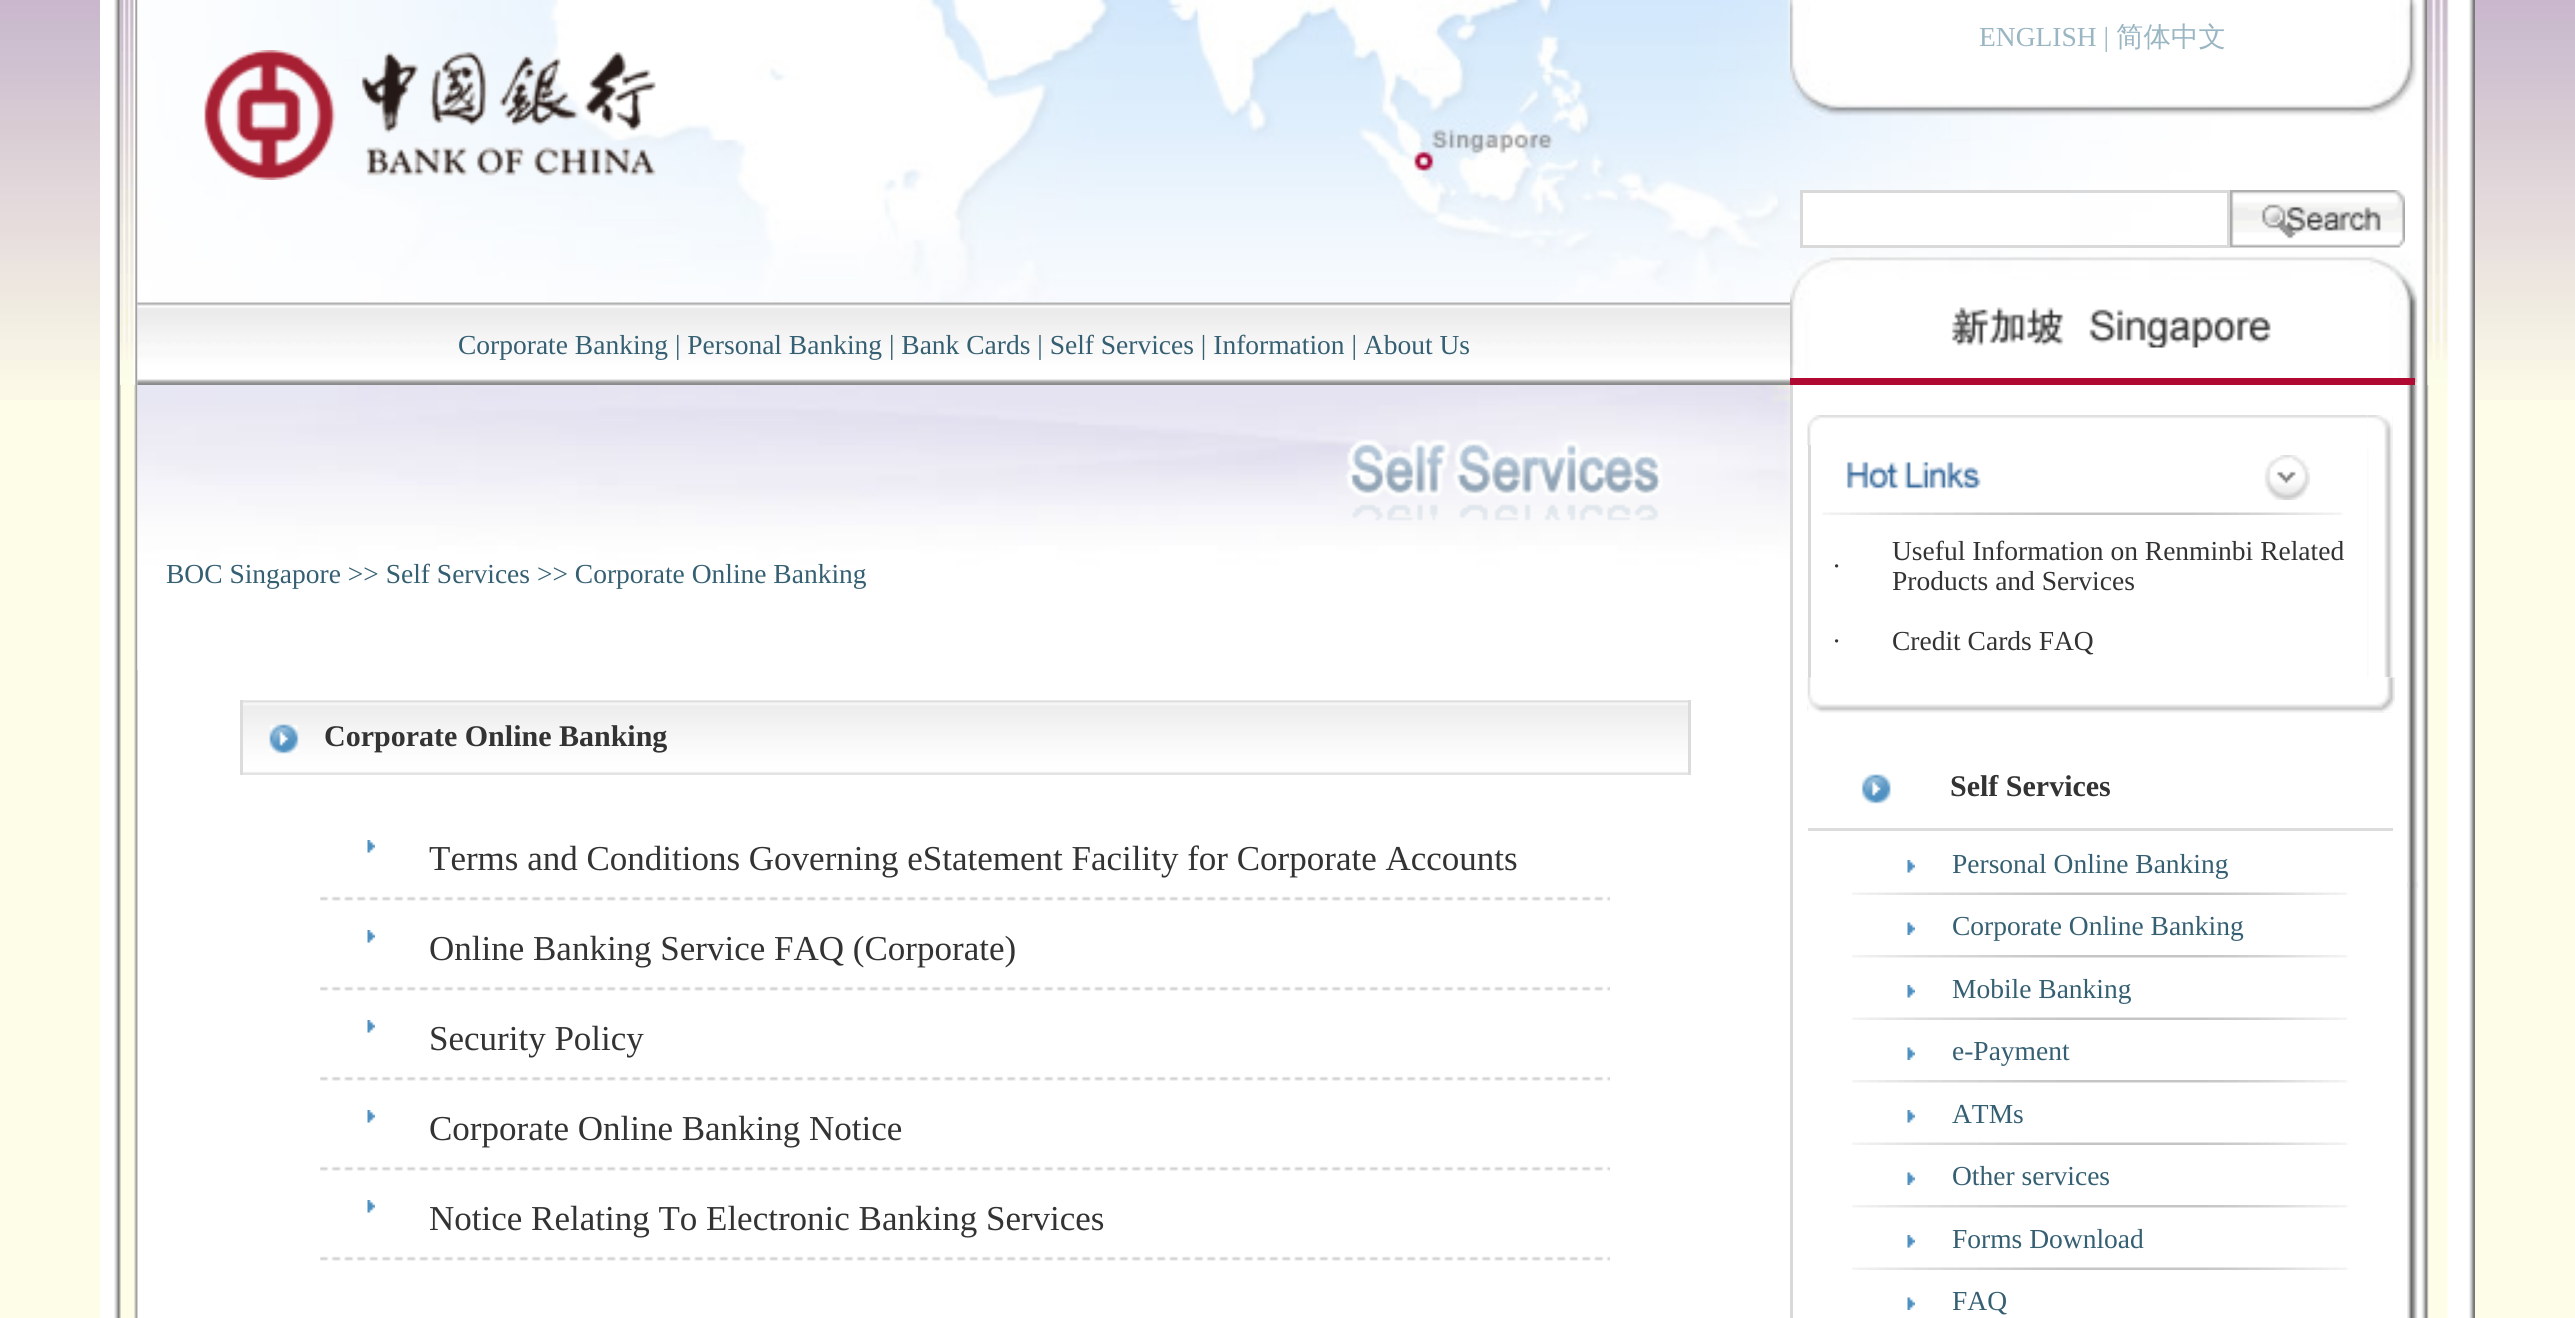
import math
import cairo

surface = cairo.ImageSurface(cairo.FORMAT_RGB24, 2575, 1318)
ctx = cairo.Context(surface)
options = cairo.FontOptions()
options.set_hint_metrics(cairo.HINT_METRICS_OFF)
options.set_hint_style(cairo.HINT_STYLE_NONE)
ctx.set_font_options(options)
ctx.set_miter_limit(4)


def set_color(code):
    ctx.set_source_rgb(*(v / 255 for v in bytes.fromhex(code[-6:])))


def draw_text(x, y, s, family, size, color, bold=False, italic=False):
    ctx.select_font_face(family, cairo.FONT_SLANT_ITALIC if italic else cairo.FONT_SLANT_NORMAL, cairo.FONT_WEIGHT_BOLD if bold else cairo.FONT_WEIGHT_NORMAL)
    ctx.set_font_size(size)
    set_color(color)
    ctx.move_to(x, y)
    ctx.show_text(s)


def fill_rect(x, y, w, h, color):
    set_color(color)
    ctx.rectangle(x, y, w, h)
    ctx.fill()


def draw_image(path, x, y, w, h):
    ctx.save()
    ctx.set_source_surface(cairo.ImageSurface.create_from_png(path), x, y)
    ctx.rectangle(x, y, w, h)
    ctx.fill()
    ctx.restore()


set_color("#fefde8")
ctx.paint()
draw_image("assets/img1.png", 0, 0, 2575, 400)
fill_rect(100, 0, 2318, 1318, "#ffffff")
draw_image("assets/img2.png", 114, 0, 24, 385)
draw_image("assets/img3.png", 120, 0, 15, 385)
draw_image("assets/img4.png", 1790, 0, 628, 385)
draw_text(1979, 46, "ENGLISH |", "Liberation Serif", 27.5, "#9ab6c3")
draw_text(2116, 46, "简体中文", "WenQuanYi Zen Hei Medium", 27.5, "#9ab6c3")
fill_rect(1803, 193, 268, 52, "#ffffff")
ctx.rectangle(1801.5, 191.5, 427, 55)
set_color("#d9d9d9")
ctx.set_line_width(3)
ctx.stroke()
draw_image("assets/img5.png", 2230, 190, 175, 58)
draw_image("assets/img6.png", 1951, 307, 320, 41)
fill_rect(1790, 378, 625, 7, "#b10a32")
draw_image("assets/img7.png", 2417, 0, 58, 385)
draw_image("assets/img8.png", 2427, 0, 22, 385)
draw_image("assets/img9.png", 137, 0, 1653, 303)
draw_image("assets/img10.png", 204, 50, 452, 130)
draw_image("assets/img11.png", 137, 302, 1653, 83)
draw_text(458, 354, "Corporate Banking | Personal Banking | Bank Cards | Self Services | Information | About Us", "Liberation Serif", 27.5, "#355f72")
draw_image("assets/img12.png", 114, 385, 24, 933)
draw_image("assets/img13.png", 137, 385, 1653, 285)
draw_image("assets/img14.png", 1345, 439, 318, 82)
draw_text(166, 583, "BOC Singapore >> Self Services >> Corporate Online Banking", "Liberation Serif", 27.5, "#355f72")
draw_image("assets/img15.png", 243, 700, 1445, 75)
fill_rect(1688, 700, 3, 75, "#dcdcdc")
fill_rect(240, 700, 3, 75, "#dcdcdc")
draw_image("assets/img16.png", 269, 724, 30, 30)
draw_text(324, 746, "Corporate Online Banking", "Liberation Serif", 30, "#333333", bold=True)
draw_image("assets/img17.png", 367, 840, 8, 13)
draw_text(429, 870, "Terms and Conditions Governing eStatement Facility for Corporate Accounts", "Liberation Serif", 35, "#333333")
draw_image("assets/img18.png", 320, 896, 1290, 5)
draw_image("assets/img17.png", 367, 930, 8, 13)
draw_text(429, 960, "Online Banking Service FAQ (Corporate)", "Liberation Serif", 35, "#333333")
draw_image("assets/img19.png", 320, 986, 1290, 5)
draw_image("assets/img17.png", 367, 1020, 8, 13)
draw_text(429, 1050, "Security Policy", "Liberation Serif", 35, "#333333")
draw_image("assets/img20.png", 320, 1076, 1290, 5)
draw_image("assets/img17.png", 367, 1110, 8, 13)
draw_text(429, 1140, "Corporate Online Banking Notice", "Liberation Serif", 35, "#333333")
draw_image("assets/img19.png", 320, 1166, 1290, 5)
draw_image("assets/img17.png", 367, 1200, 8, 13)
draw_text(429, 1230, "Notice Relating To Electronic Banking Services", "Liberation Serif", 35, "#333333")
draw_image("assets/img18.png", 320, 1256, 1290, 5)
fill_rect(1790, 385, 3, 933, "#d9d9d9")
draw_image("assets/img21.png", 1807, 415, 561, 30)
draw_image("assets/img22.png", 2367, 415, 26, 263)
draw_image("assets/img23.png", 2367, 415, 26, 35)
fill_rect(1808, 445, 3, 233, "#d9d9d9")
draw_image("assets/img24.png", 1846, 461, 135, 28)
draw_image("assets/img25.png", 2264, 455, 46, 45)
draw_image("assets/img26.png", 1822, 512, 521, 3)
draw_text(1832, 575, "·", "Liberation Serif", 27.5, "#333333")
draw_text(1892, 560, "Useful Information on Renminbi Related", "Liberation Serif", 27.5, "#333333")
draw_text(1892, 590, "Products and Services", "Liberation Serif", 27.5, "#333333")
draw_text(1832, 650, "·", "Liberation Serif", 27.5, "#333333")
draw_text(1892, 650, "Credit Cards FAQ", "Liberation Serif", 27.5, "#333333")
draw_image("assets/img27.png", 1807, 677, 588, 36)
draw_image("assets/img28.png", 2370, 677, 25, 36)
fill_rect(1808, 828, 585, 3, "#dcdcdc")
draw_image("assets/img29.png", 1861, 774, 30, 30)
draw_text(1950, 796, "Self Services", "Liberation Serif", 30, "#333333", bold=True)
draw_image("assets/img30.png", 1907, 860, 8, 13)
draw_text(1952, 873, "Personal Online Banking", "Liberation Serif", 27.5, "#355f72")
draw_image("assets/img31.png", 1852, 892, 496, 3)
draw_image("assets/img32.png", 1907, 922, 8, 13)
draw_text(1952, 935, "Corporate Online Banking", "Liberation Serif", 27.5, "#355f72")
draw_image("assets/img33.png", 1852, 955, 496, 3)
draw_image("assets/img30.png", 1907, 985, 8, 13)
draw_text(1952, 998, "Mobile Banking", "Liberation Serif", 27.5, "#355f72")
draw_image("assets/img31.png", 1852, 1017, 496, 3)
draw_image("assets/img32.png", 1907, 1047, 8, 13)
draw_text(1952, 1060, "e-Payment", "Liberation Serif", 27.5, "#355f72")
draw_image("assets/img33.png", 1852, 1080, 496, 3)
draw_image("assets/img30.png", 1907, 1110, 8, 13)
draw_text(1952, 1123, "ATMs", "Liberation Serif", 27.5, "#355f72")
draw_image("assets/img31.png", 1852, 1142, 496, 3)
draw_image("assets/img34.png", 1907, 1172, 8, 13)
draw_text(1952, 1185, "Other services", "Liberation Serif", 27.5, "#355f72")
draw_image("assets/img33.png", 1852, 1205, 496, 3)
draw_image("assets/img30.png", 1907, 1235, 8, 13)
draw_text(1952, 1248, "Forms Download", "Liberation Serif", 27.5, "#355f72")
draw_image("assets/img31.png", 1852, 1267, 496, 3)
draw_image("assets/img32.png", 1907, 1297, 8, 13)
draw_text(1952, 1310, "FAQ", "Liberation Serif", 27.5, "#355f72")
draw_image("assets/img35.png", 2407, 385, 11, 933)
draw_image("assets/img37.png", 2417, 385, 58, 933)
draw_image("assets/img36.png", 2407, 882, 11, 6)
surface.write_to_png("output.png")
